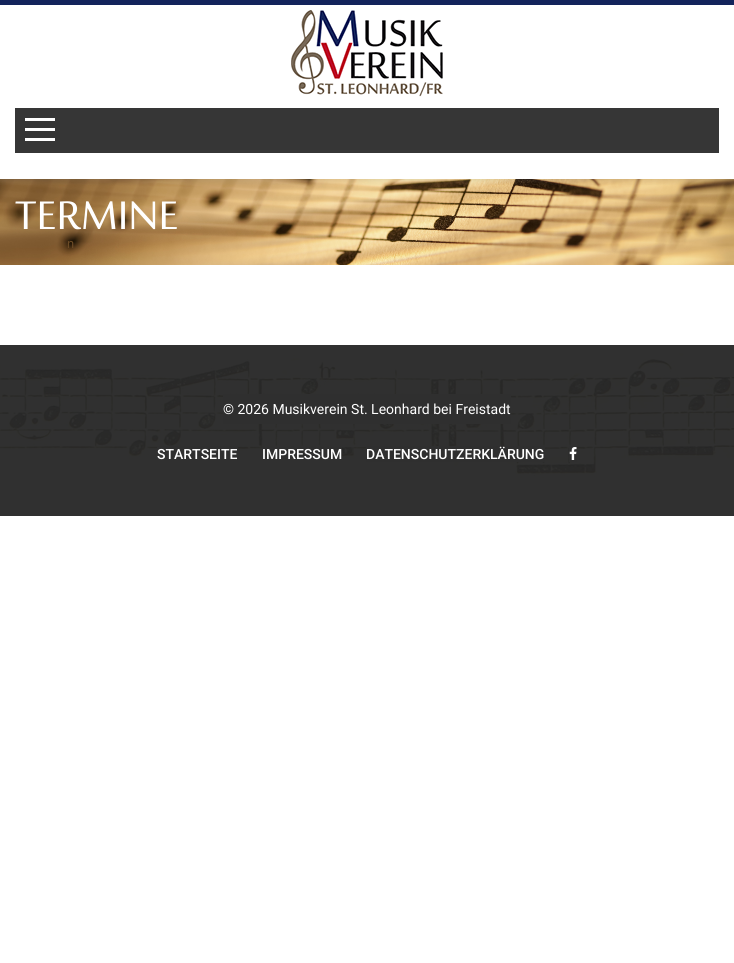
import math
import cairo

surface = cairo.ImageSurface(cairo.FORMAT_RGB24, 734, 963)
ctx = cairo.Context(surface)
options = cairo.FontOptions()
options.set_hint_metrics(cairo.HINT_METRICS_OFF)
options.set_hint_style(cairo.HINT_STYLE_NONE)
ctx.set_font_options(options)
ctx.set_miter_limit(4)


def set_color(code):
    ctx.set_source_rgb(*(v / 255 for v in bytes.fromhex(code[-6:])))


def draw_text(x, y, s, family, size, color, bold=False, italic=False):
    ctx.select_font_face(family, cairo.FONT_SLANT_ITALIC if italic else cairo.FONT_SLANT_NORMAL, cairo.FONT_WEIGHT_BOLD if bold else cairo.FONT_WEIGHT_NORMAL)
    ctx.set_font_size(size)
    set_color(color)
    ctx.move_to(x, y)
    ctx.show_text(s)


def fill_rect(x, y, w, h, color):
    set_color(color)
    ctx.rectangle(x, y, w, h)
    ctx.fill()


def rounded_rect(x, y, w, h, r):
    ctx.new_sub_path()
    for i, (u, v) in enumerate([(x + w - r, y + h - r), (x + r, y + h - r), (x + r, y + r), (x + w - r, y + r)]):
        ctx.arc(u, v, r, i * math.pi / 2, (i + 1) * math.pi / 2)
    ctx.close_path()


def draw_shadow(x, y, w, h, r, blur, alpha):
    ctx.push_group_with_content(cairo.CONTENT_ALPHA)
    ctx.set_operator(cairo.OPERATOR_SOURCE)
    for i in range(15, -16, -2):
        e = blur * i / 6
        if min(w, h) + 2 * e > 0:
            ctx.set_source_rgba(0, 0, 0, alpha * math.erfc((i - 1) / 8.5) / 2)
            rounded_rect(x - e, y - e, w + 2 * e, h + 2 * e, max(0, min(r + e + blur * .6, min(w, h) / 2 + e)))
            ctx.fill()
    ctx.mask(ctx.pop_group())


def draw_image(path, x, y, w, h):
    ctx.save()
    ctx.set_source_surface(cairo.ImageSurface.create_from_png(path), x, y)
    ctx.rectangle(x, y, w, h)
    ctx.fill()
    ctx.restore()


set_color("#ffffff")
ctx.paint()
fill_rect(0, 484, 734, 32, "#303030")
draw_image("assets/img1.png", 0, 179, 734, 86)
draw_text(15, 229, "TERMINE", "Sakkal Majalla", 55, "#ffffff")
ctx.save()
ctx.rectangle(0, 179, 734, 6)
ctx.clip()
set_color("#7d7d7d")
draw_shadow(0, 2, 734, 179, 0, 3.5, 0.2)
ctx.restore()
fill_rect(0, 0, 734, 5, "#13235b")
draw_image("assets/img2.png", 291, 10, 152, 87)
fill_rect(15, 108, 704, 45, "#363636")
fill_rect(25, 138, 30, 3, "#ffffff")
fill_rect(25, 128, 30, 3, "#ffffff")
fill_rect(25, 118, 30, 3, "#ffffff")
draw_text(67, 248, "n", "Roboto", 13, "#6c4b26")
draw_image("assets/img3.png", 0, 345, 734, 139)
fill_rect(223, 394, 288, 30, "#2f2f2f")
draw_text(223, 414, "© 2026 Musikverein St. Leonhard bei Freistadt", "Roboto", 14, "#ffffff")
fill_rect(157, 446, 81, 3, "#2f2f2f")
draw_text(157, 459, "STARTSEITE", "Roboto Medium", 14, "#ffffff")
fill_rect(262, 447, 80, 9, "#2f2f2f")
draw_text(262, 459, "IMPRESSUM", "Roboto Medium", 14, "#ffffff")
fill_rect(366, 446, 179, 16, "#2f2f2f")
draw_text(366, 459, "DATENSCHUTZERKLÄRUNG", "Roboto Medium", 14, "#ffffff")
fill_rect(569, 446, 8, 16, "#2f2f2f")
draw_image("assets/img4.png", 569, 447, 8, 13)
surface.write_to_png("output.png")
